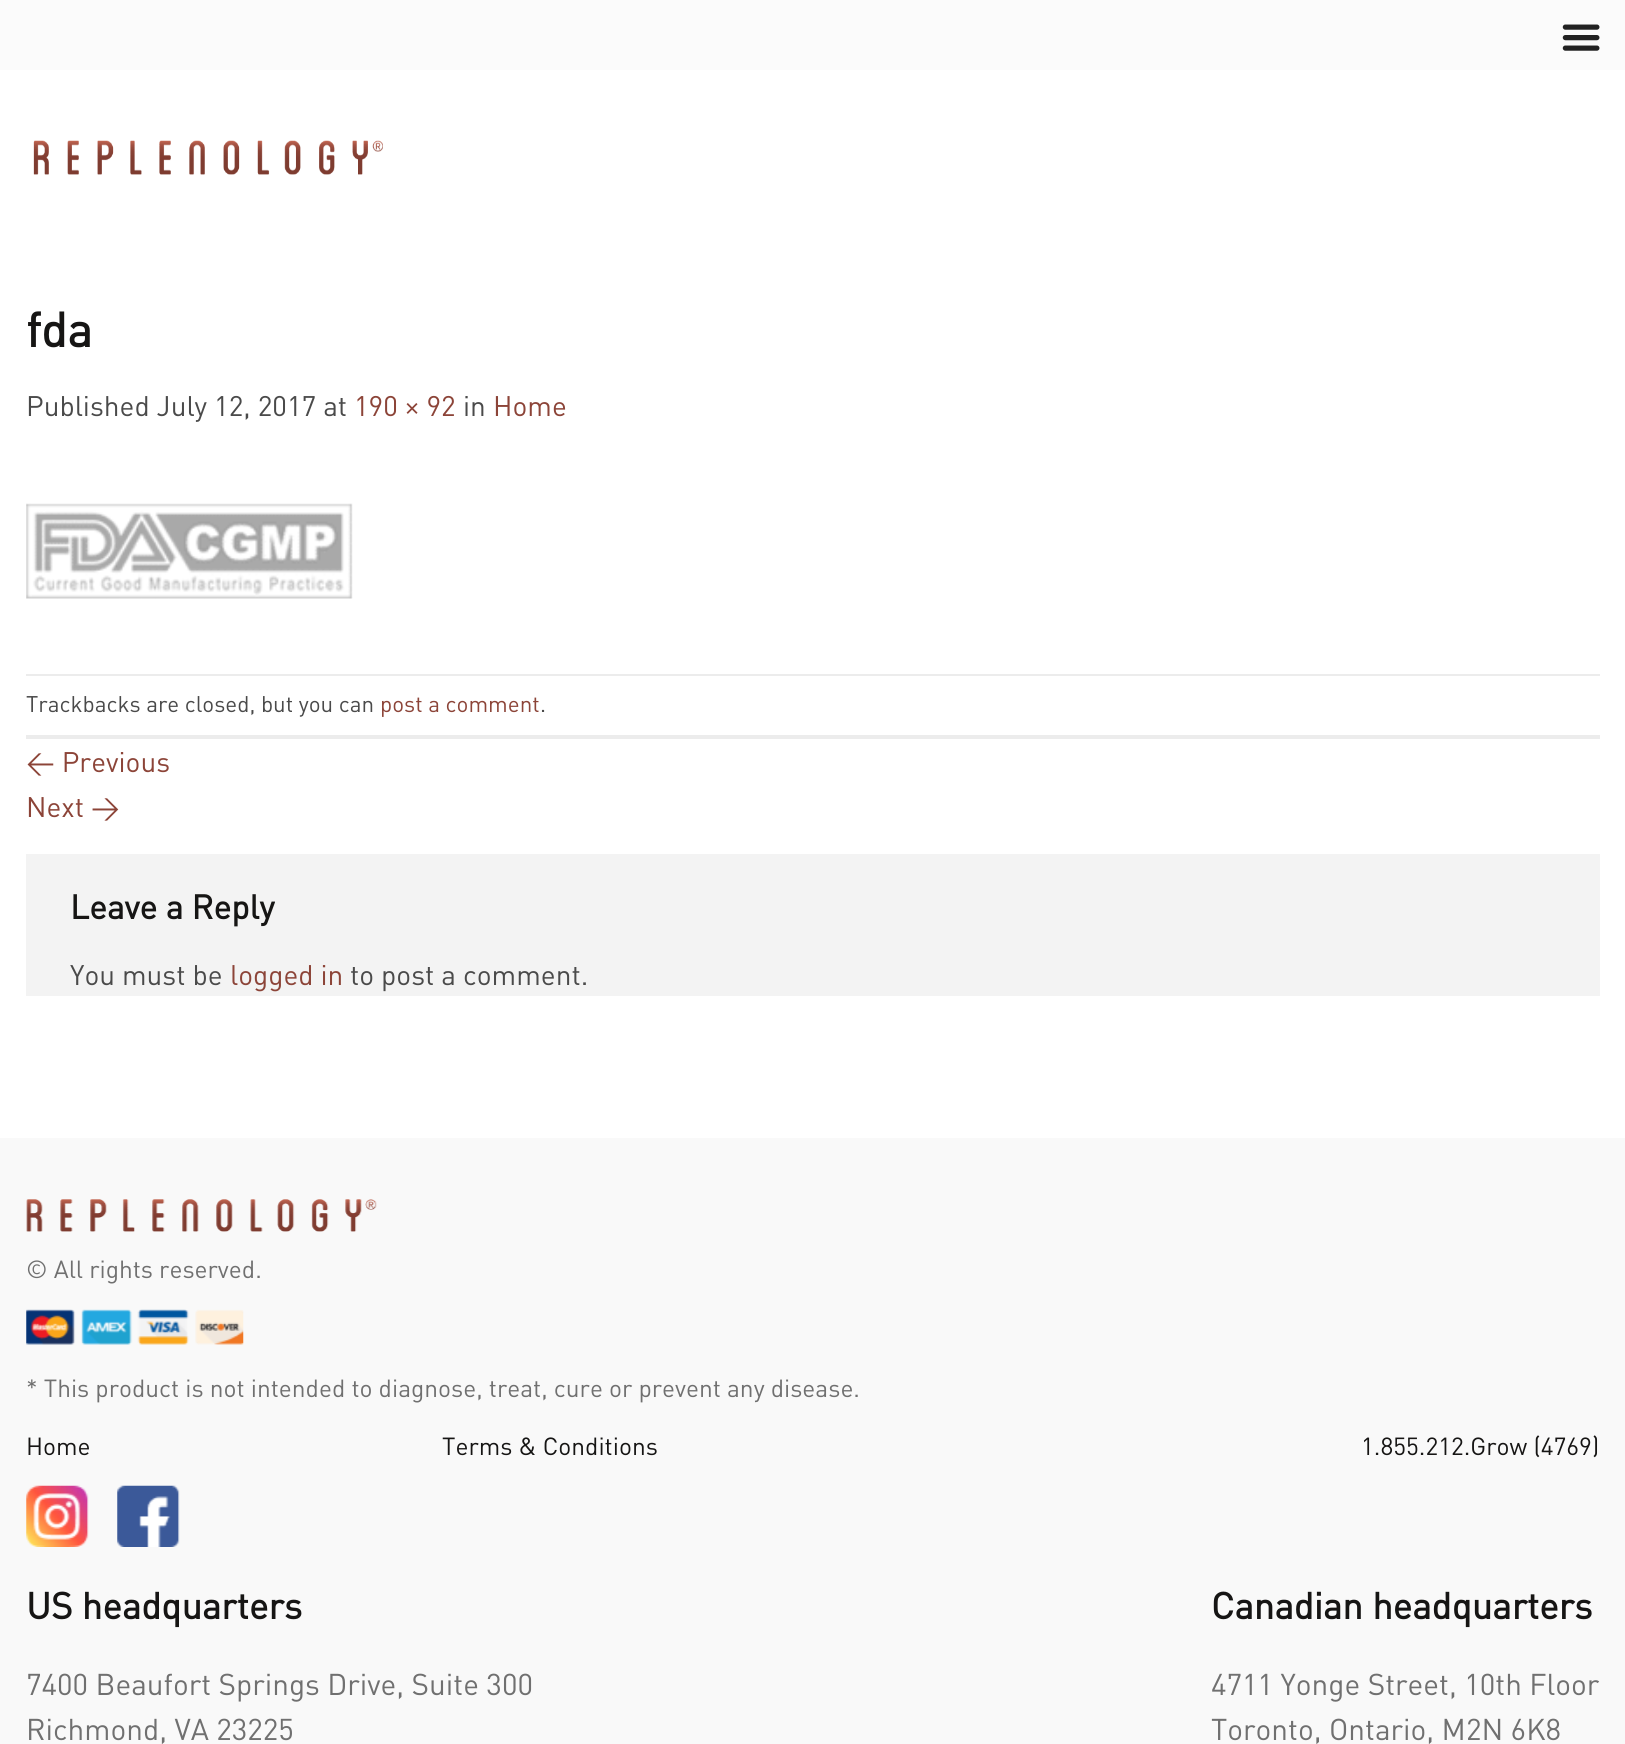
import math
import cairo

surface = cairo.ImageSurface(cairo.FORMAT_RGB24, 1625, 1744)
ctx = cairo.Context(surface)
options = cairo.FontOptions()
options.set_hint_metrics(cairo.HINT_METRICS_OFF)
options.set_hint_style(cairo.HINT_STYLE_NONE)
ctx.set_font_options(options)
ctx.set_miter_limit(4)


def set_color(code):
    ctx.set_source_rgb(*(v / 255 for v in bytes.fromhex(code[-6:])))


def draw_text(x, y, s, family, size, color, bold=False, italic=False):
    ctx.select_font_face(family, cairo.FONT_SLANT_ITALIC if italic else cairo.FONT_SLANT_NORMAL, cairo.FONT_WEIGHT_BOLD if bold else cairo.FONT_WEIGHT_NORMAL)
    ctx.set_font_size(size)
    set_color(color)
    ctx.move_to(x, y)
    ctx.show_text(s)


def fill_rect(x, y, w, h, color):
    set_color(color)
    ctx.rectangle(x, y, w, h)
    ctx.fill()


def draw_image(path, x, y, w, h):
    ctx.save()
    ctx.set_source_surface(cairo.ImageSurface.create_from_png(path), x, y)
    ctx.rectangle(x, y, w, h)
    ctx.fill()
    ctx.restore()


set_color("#ffffff")
ctx.paint()
fill_rect(0, 0, 1625, 70, "#fbfbfb")
draw_image("assets/img1.png", 1562, 24, 38, 27)
draw_image("assets/img2.png", 33, 140, 350, 35)
draw_text(26, 347, "fda", "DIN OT", 48, "#161514", bold=True)
draw_text(26, 416, "Published July 12, 2017 at", "DIN OT", 28, "#4a4a4a")
draw_text(354, 416, "190 × 92", "DIN OT", 28, "#8c4438")
draw_text(463, 416, "in", "DIN OT", 28, "#4a4a4a")
draw_text(493, 416, "Home", "DIN OT", 28, "#8c4438")
draw_image("assets/img3.png", 26, 503, 327, 96)
fill_rect(26, 674, 1574, 2, "#ececec")
fill_rect(26, 735, 1574, 4, "#ececec")
draw_text(26, 712, "Trackbacks are closed, but you can", "DIN OT", 22.4, "#4a4a4a")
draw_text(380, 712, "post a comment", "DIN OT", 22.4, "#8c4438")
draw_text(540, 712, ".", "DIN OT", 22.4, "#4a4a4a")
draw_text(26, 772, "← Previous", "DIN OT", 28, "#8c4438")
draw_text(26, 817, "Next →", "DIN OT", 28, "#8c4438")
fill_rect(26, 854, 1574, 142, "#f3f3f3")
draw_text(70, 919, "Leave a Reply", "DIN OT", 33.5, "#161514", bold=True)
draw_text(70, 985, "You must be", "DIN OT", 28, "#4a4a4a")
draw_text(230, 985, "logged in", "DIN OT", 28, "#8c4438")
draw_text(350, 985, "to post a comment.", "DIN OT", 28, "#4a4a4a")
fill_rect(0, 1138, 1625, 606, "#f9f9f9")
draw_image("assets/img4.png", 26, 1199, 351, 33)
draw_text(26, 1278, "© All rights reserved.", "DIN OT", 24.5, "#707070")
draw_image("assets/img5.png", 26, 1309, 218, 36)
draw_text(26, 1397, "* This product is not intended to diagnose, treat, cure or prevent any disease.", "DIN OT", 24.5, "#707070")
draw_text(26, 1455, "Home", "DIN OT", 24.5, "#161514")
draw_text(442, 1455, "Terms & Conditions", "DIN OT", 24.5, "#161514")
draw_text(1361, 1455, "1.855.212.Grow (4769)", "DIN OT", 24.5, "#161514")
draw_image("assets/img6.png", 26, 1485, 63, 62)
draw_image("assets/img7.png", 117, 1485, 63, 62)
draw_text(26, 1619, "US headquarters", "DIN OT", 36.75, "#161514", bold=True)
draw_text(26, 1695, "7400 Beaufort Springs Drive, Suite 300", "DIN OT", 29.75, "#707070")
draw_text(26, 1740, "Richmond, VA 23225", "DIN OT", 29.75, "#707070")
draw_text(1211, 1619, "Canadian headquarters", "DIN OT", 36.75, "#161514", bold=True)
draw_text(1211, 1695, "4711 Yonge Street, 10th Floor", "DIN OT", 29.75, "#707070")
draw_text(1211, 1740, "Toronto, Ontario, M2N 6K8", "DIN OT", 29.75, "#707070")
surface.write_to_png("output.png")
